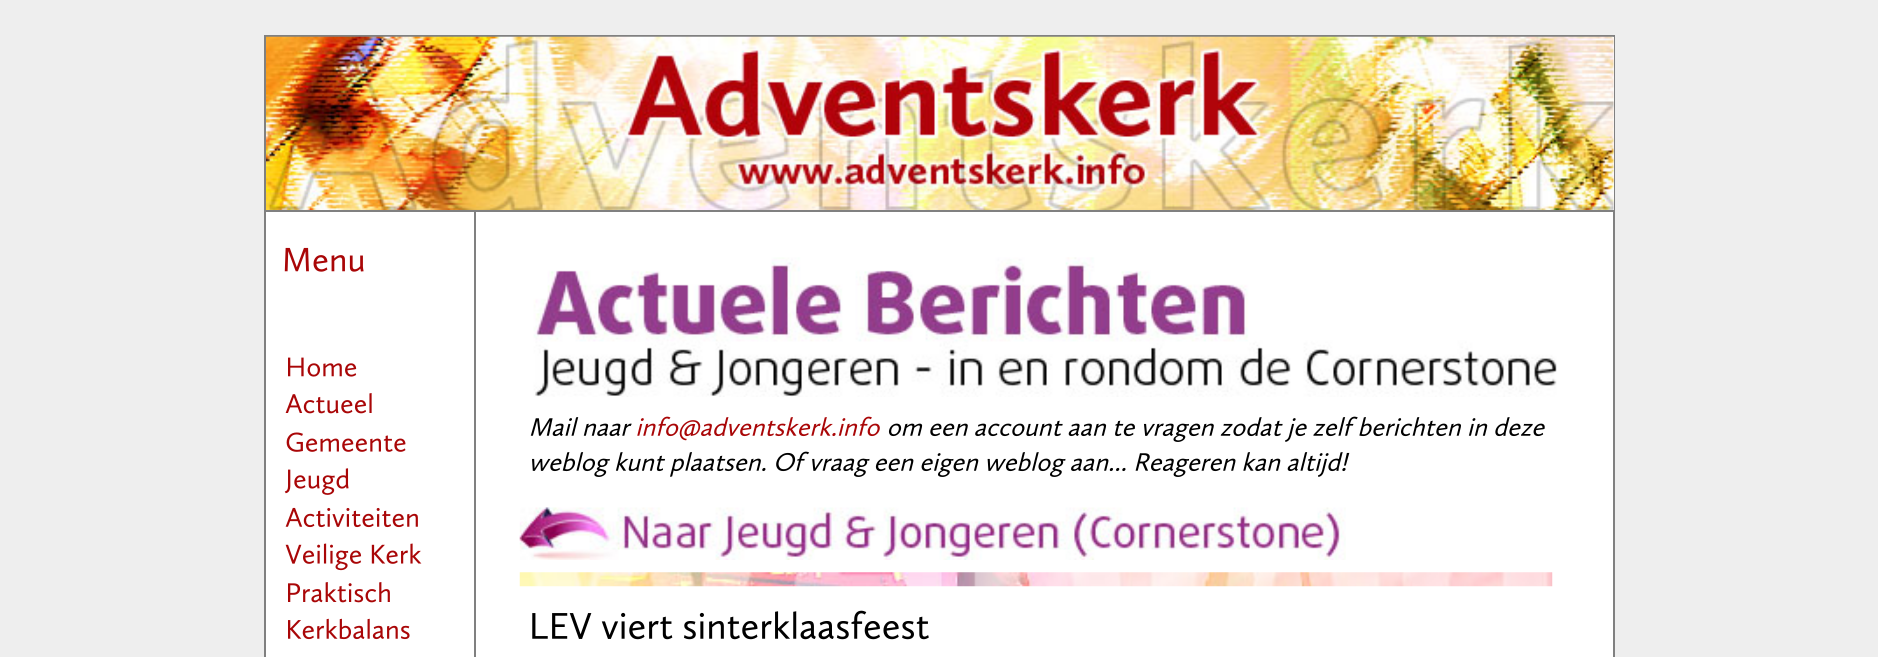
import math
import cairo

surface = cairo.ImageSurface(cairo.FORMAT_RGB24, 1878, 657)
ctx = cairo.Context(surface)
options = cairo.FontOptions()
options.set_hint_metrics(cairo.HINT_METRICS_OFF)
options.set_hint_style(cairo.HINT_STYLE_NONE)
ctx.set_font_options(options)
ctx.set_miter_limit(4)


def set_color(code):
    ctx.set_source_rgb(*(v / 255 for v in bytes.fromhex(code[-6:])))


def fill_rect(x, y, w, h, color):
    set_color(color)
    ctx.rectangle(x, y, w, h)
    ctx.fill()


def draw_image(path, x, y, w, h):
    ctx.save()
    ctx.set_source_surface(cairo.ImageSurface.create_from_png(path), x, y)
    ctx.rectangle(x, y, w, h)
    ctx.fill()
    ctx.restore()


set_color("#eeeeee")
ctx.paint()
fill_rect(266, 212, 1347, 445, "#ffffff")
ctx.rectangle(265, 36, 1349, 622)
set_color("#808080")
ctx.stroke()
fill_rect(1613, 37, 1, 173, "#ffffff")
draw_image("assets/img1.png", 266, 36, 1348, 174)
fill_rect(266, 210, 1348, 2, "#808080")
fill_rect(474, 212, 2, 445, "#808080")
draw_image("assets/img2.png", 284, 247, 80, 25)
draw_image("assets/img3.png", 288, 357, 69, 20)
draw_image("assets/img4.png", 285, 393, 87, 21)
draw_image("assets/img5.png", 286, 432, 120, 20)
draw_image("assets/img6.png", 284, 468, 65, 27)
draw_image("assets/img7.png", 285, 507, 133, 21)
draw_image("assets/img8.png", 285, 543, 137, 28)
draw_image("assets/img9.png", 288, 582, 102, 21)
draw_image("assets/img10.png", 288, 618, 122, 22)
draw_image("assets/img11.png", 533, 257, 1024, 140)
draw_image("assets/img12.png", 530, 417, 102, 20)
draw_image("assets/img13.png", 637, 416, 243, 25)
draw_image("assets/img14.png", 888, 416, 657, 26)
draw_image("assets/img15.png", 532, 451, 818, 26)
draw_image("assets/img16.png", 519, 507, 827, 53)
draw_image("assets/img17.png", 519, 572, 1034, 15)
draw_image("assets/img18.png", 532, 610, 397, 30)
surface.write_to_png("output.png")
